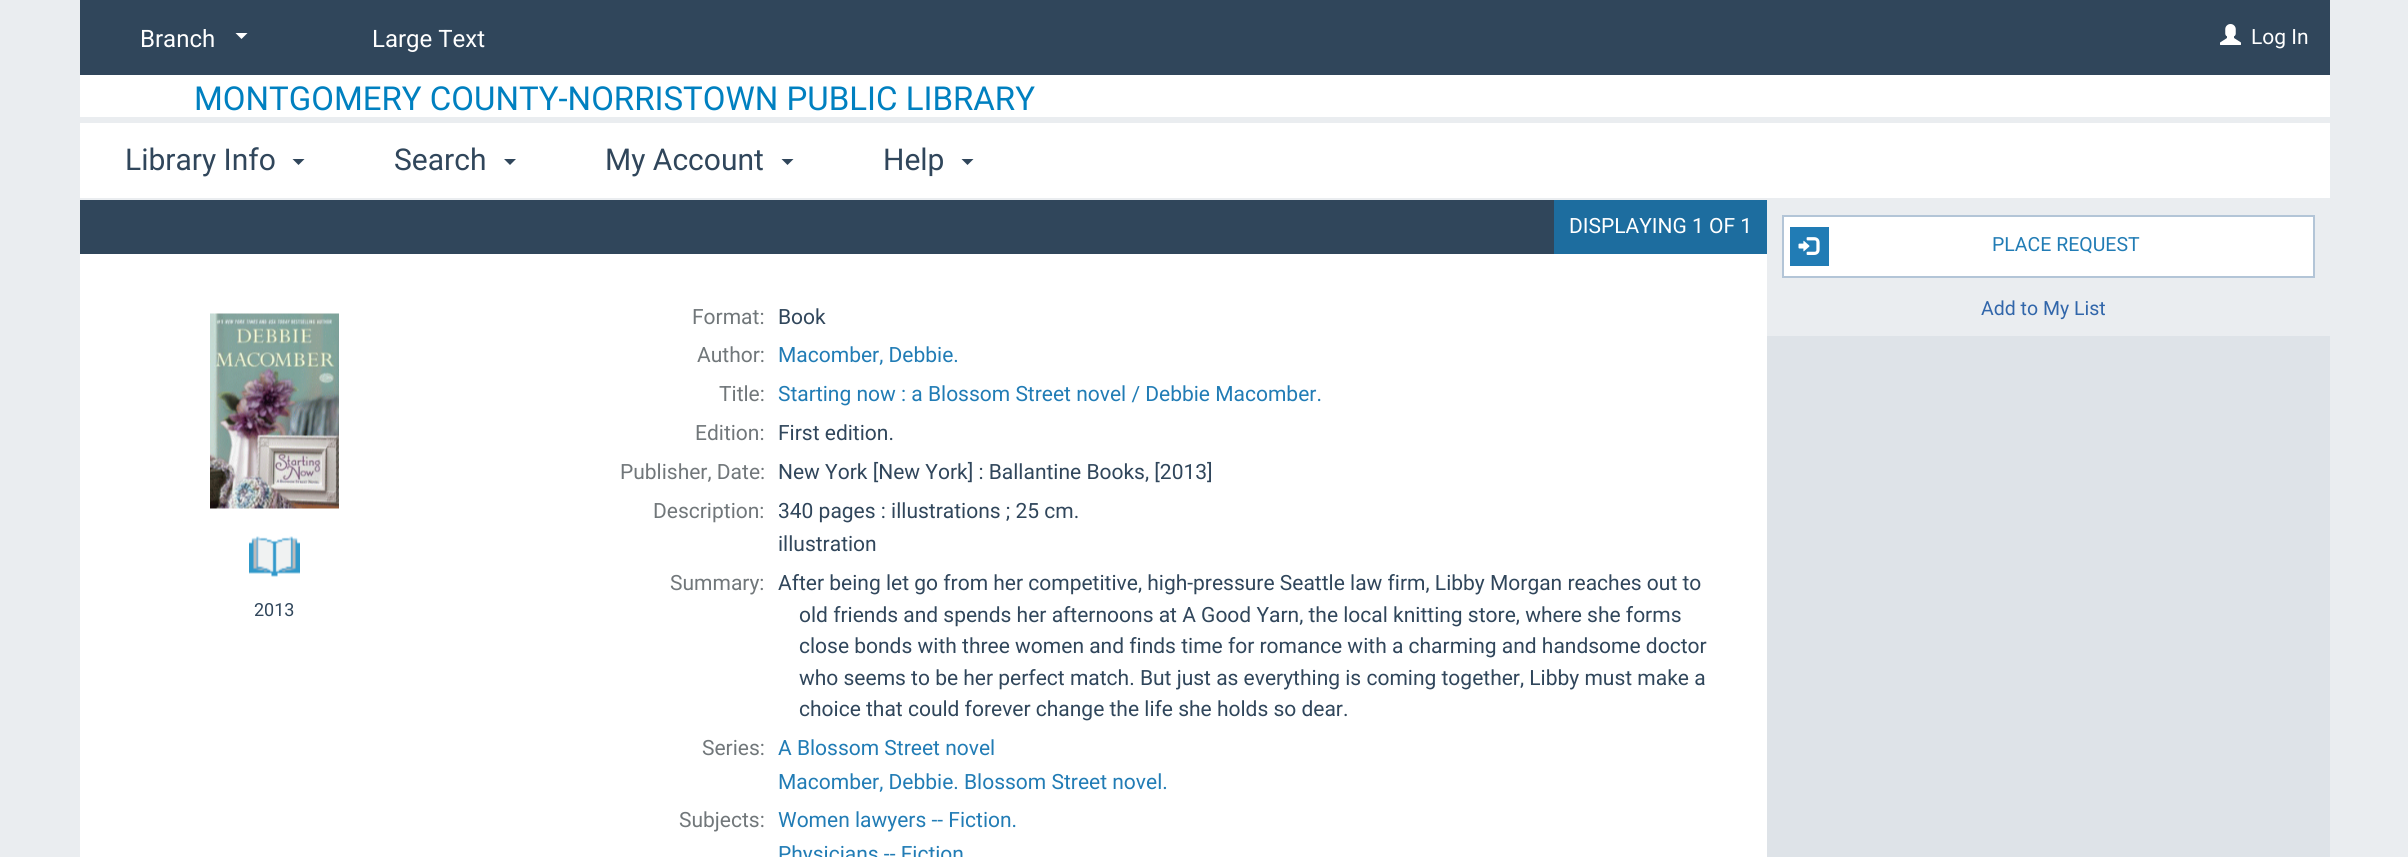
import math
import cairo

surface = cairo.ImageSurface(cairo.FORMAT_RGB24, 2408, 857)
ctx = cairo.Context(surface)
options = cairo.FontOptions()
options.set_hint_metrics(cairo.HINT_METRICS_OFF)
options.set_hint_style(cairo.HINT_STYLE_NONE)
ctx.set_font_options(options)
ctx.set_miter_limit(4)


def set_color(code):
    ctx.set_source_rgb(*(v / 255 for v in bytes.fromhex(code[-6:])))


def draw_text(x, y, s, family, size, color, bold=False, italic=False):
    ctx.select_font_face(family, cairo.FONT_SLANT_ITALIC if italic else cairo.FONT_SLANT_NORMAL, cairo.FONT_WEIGHT_BOLD if bold else cairo.FONT_WEIGHT_NORMAL)
    ctx.set_font_size(size)
    set_color(color)
    ctx.move_to(x, y)
    ctx.show_text(s)


def fill_rect(x, y, w, h, color):
    set_color(color)
    ctx.rectangle(x, y, w, h)
    ctx.fill()


def draw_image(path, x, y, w, h):
    ctx.save()
    ctx.set_source_surface(cairo.ImageSurface.create_from_png(path), x, y)
    ctx.rectangle(x, y, w, h)
    ctx.fill()
    ctx.restore()


set_color("#eaedf0")
ctx.paint()
fill_rect(80, 0, 2250, 75, "#30465b")
draw_text(140, 47, "Branch", "Roboto", 24, "#ffffff")
ctx.new_path()
ctx.move_to(235.5, 33)
ctx.line_to(247.5, 33)
ctx.line_to(241.5, 39)
ctx.close_path()
ctx.fill()
draw_text(372, 47, "Large Text", "Roboto", 24, "#ffffff")
fill_rect(80, 123, 2250, 75, "#ffffff")
draw_text(125, 170, "Library Info", "Roboto", 30, "#30465b")
ctx.new_path()
ctx.move_to(292.5, 159)
ctx.line_to(304.5, 159)
ctx.line_to(298.5, 165)
ctx.close_path()
ctx.fill()
draw_text(394, 170, "Search", "Roboto", 30, "#30465b")
ctx.new_path()
ctx.move_to(504, 159)
ctx.line_to(516, 159)
ctx.line_to(510, 165)
ctx.close_path()
ctx.fill()
draw_text(605, 170, "My Account", "Roboto", 30, "#30465b")
ctx.new_path()
ctx.move_to(781.5, 159)
ctx.line_to(793.5, 159)
ctx.line_to(787.5, 165)
ctx.close_path()
ctx.fill()
draw_text(883, 170, "Help", "Roboto", 30, "#30465b")
ctx.new_path()
ctx.move_to(961.5, 159)
ctx.line_to(973.5, 159)
ctx.line_to(967.5, 165)
ctx.close_path()
ctx.fill()
draw_image("assets/img1.png", 2220, 24, 21, 21)
draw_text(2251, 44, "Log In", "Roboto", 21, "#ffffff")
fill_rect(80, 75, 2250, 42, "#ffffff")
draw_text(194, 110, "MONTGOMERY COUNTY-NORRISTOWN PUBLIC LIBRARY", "Roboto", 33, "#0080c0")
fill_rect(1767, 336, 563, 521, "#dee3e8")
fill_rect(80, 254, 1687, 603, "#ffffff")
fill_rect(80, 200, 1474, 54, "#30465b")
fill_rect(1554, 200, 213, 54, "#1d6d9f")
draw_text(1569, 233, "DISPLAYING 1 OF 1", "Roboto", 21, "#ffffff")
draw_image("assets/img2.png", 210, 313, 129, 196)
draw_image("assets/img3.png", 249, 536, 51, 41)
draw_text(254, 616, "2013", "Roboto", 18, "#30465b")
draw_text(692, 324, "Format:", "Roboto", 21, "#71777a")
draw_text(778, 324, "Book", "Roboto", 21, "#30465b")
draw_text(697, 362, "Author:", "Roboto", 21, "#71777a")
draw_text(778, 362, "Macomber, Debbie.", "Roboto", 21, "#217cb5")
draw_text(719, 401, "Title:", "Roboto", 21, "#71777a")
draw_text(778, 401, "Starting now : a Blossom Street novel / Debbie Macomber.", "Roboto", 21, "#217cb5")
draw_text(695, 440, "Edition:", "Roboto", 21, "#71777a")
draw_text(778, 440, "First edition.", "Roboto", 21, "#30465b")
draw_text(620, 479, "Publisher, Date:", "Roboto", 21, "#71777a")
draw_text(778, 479, "New York [New York] : Ballantine Books, [2013]", "Roboto", 21, "#30465b")
draw_text(653, 518, "Description:", "Roboto", 21, "#71777a")
draw_text(778, 518, "340 pages : illustrations ; 25 cm.", "Roboto", 21, "#30465b")
draw_text(778, 551, "illustration", "Roboto", 21, "#30465b")
draw_text(670, 590, "Summary:", "Roboto", 21, "#71777a")
draw_text(778, 590, "After being let go from her competitive, high-pressure Seattle law firm, Libby Morgan reaches out to", "Roboto", 21, "#30465b")
draw_text(799, 622, "old friends and spends her afternoons at A Good Yarn, the local knitting store, where she forms", "Roboto", 21, "#30465b")
draw_text(799, 653, "close bonds with three women and finds time for romance with a charming and handsome doctor", "Roboto", 21, "#30465b")
draw_text(799, 685, "who seems to be her perfect match. But just as everything is coming together, Libby must make a", "Roboto", 21, "#30465b")
draw_text(799, 716, "choice that could forever change the life she holds so dear.", "Roboto", 21, "#30465b")
draw_text(702, 755, "Series:", "Roboto", 21, "#71777a")
draw_text(778, 755, "A Blossom Street novel", "Roboto", 21, "#217cb5")
draw_text(778, 789, "Macomber, Debbie. Blossom Street novel.", "Roboto", 21, "#217cb5")
draw_text(679, 827, "Subjects:", "Roboto", 21, "#71777a")
draw_text(778, 827, "Women lawyers -- Fiction.", "Roboto", 21, "#217cb5")
draw_text(778, 861, "Physicians -- Fiction", "Roboto", 21, "#217cb5")
fill_rect(1782, 276, 533, 2, "#b3c5d7")
fill_rect(1784, 217, 529, 59, "#ffffff")
fill_rect(1782, 215, 533, 2, "#b3c5d7")
fill_rect(2313, 215, 2, 61, "#b3c5d7")
fill_rect(1782, 215, 2, 61, "#b3c5d7")
fill_rect(1790, 227, 39, 39, "#217cb5")
draw_image("assets/img4.png", 1798, 237, 22, 18)
draw_text(1992, 251, "PLACE REQUEST", "Roboto", 19.5, "#217cb5")
draw_text(1981, 315, "Add to My List", "Roboto", 19.5, "#3166aa")
surface.write_to_png("output.png")
